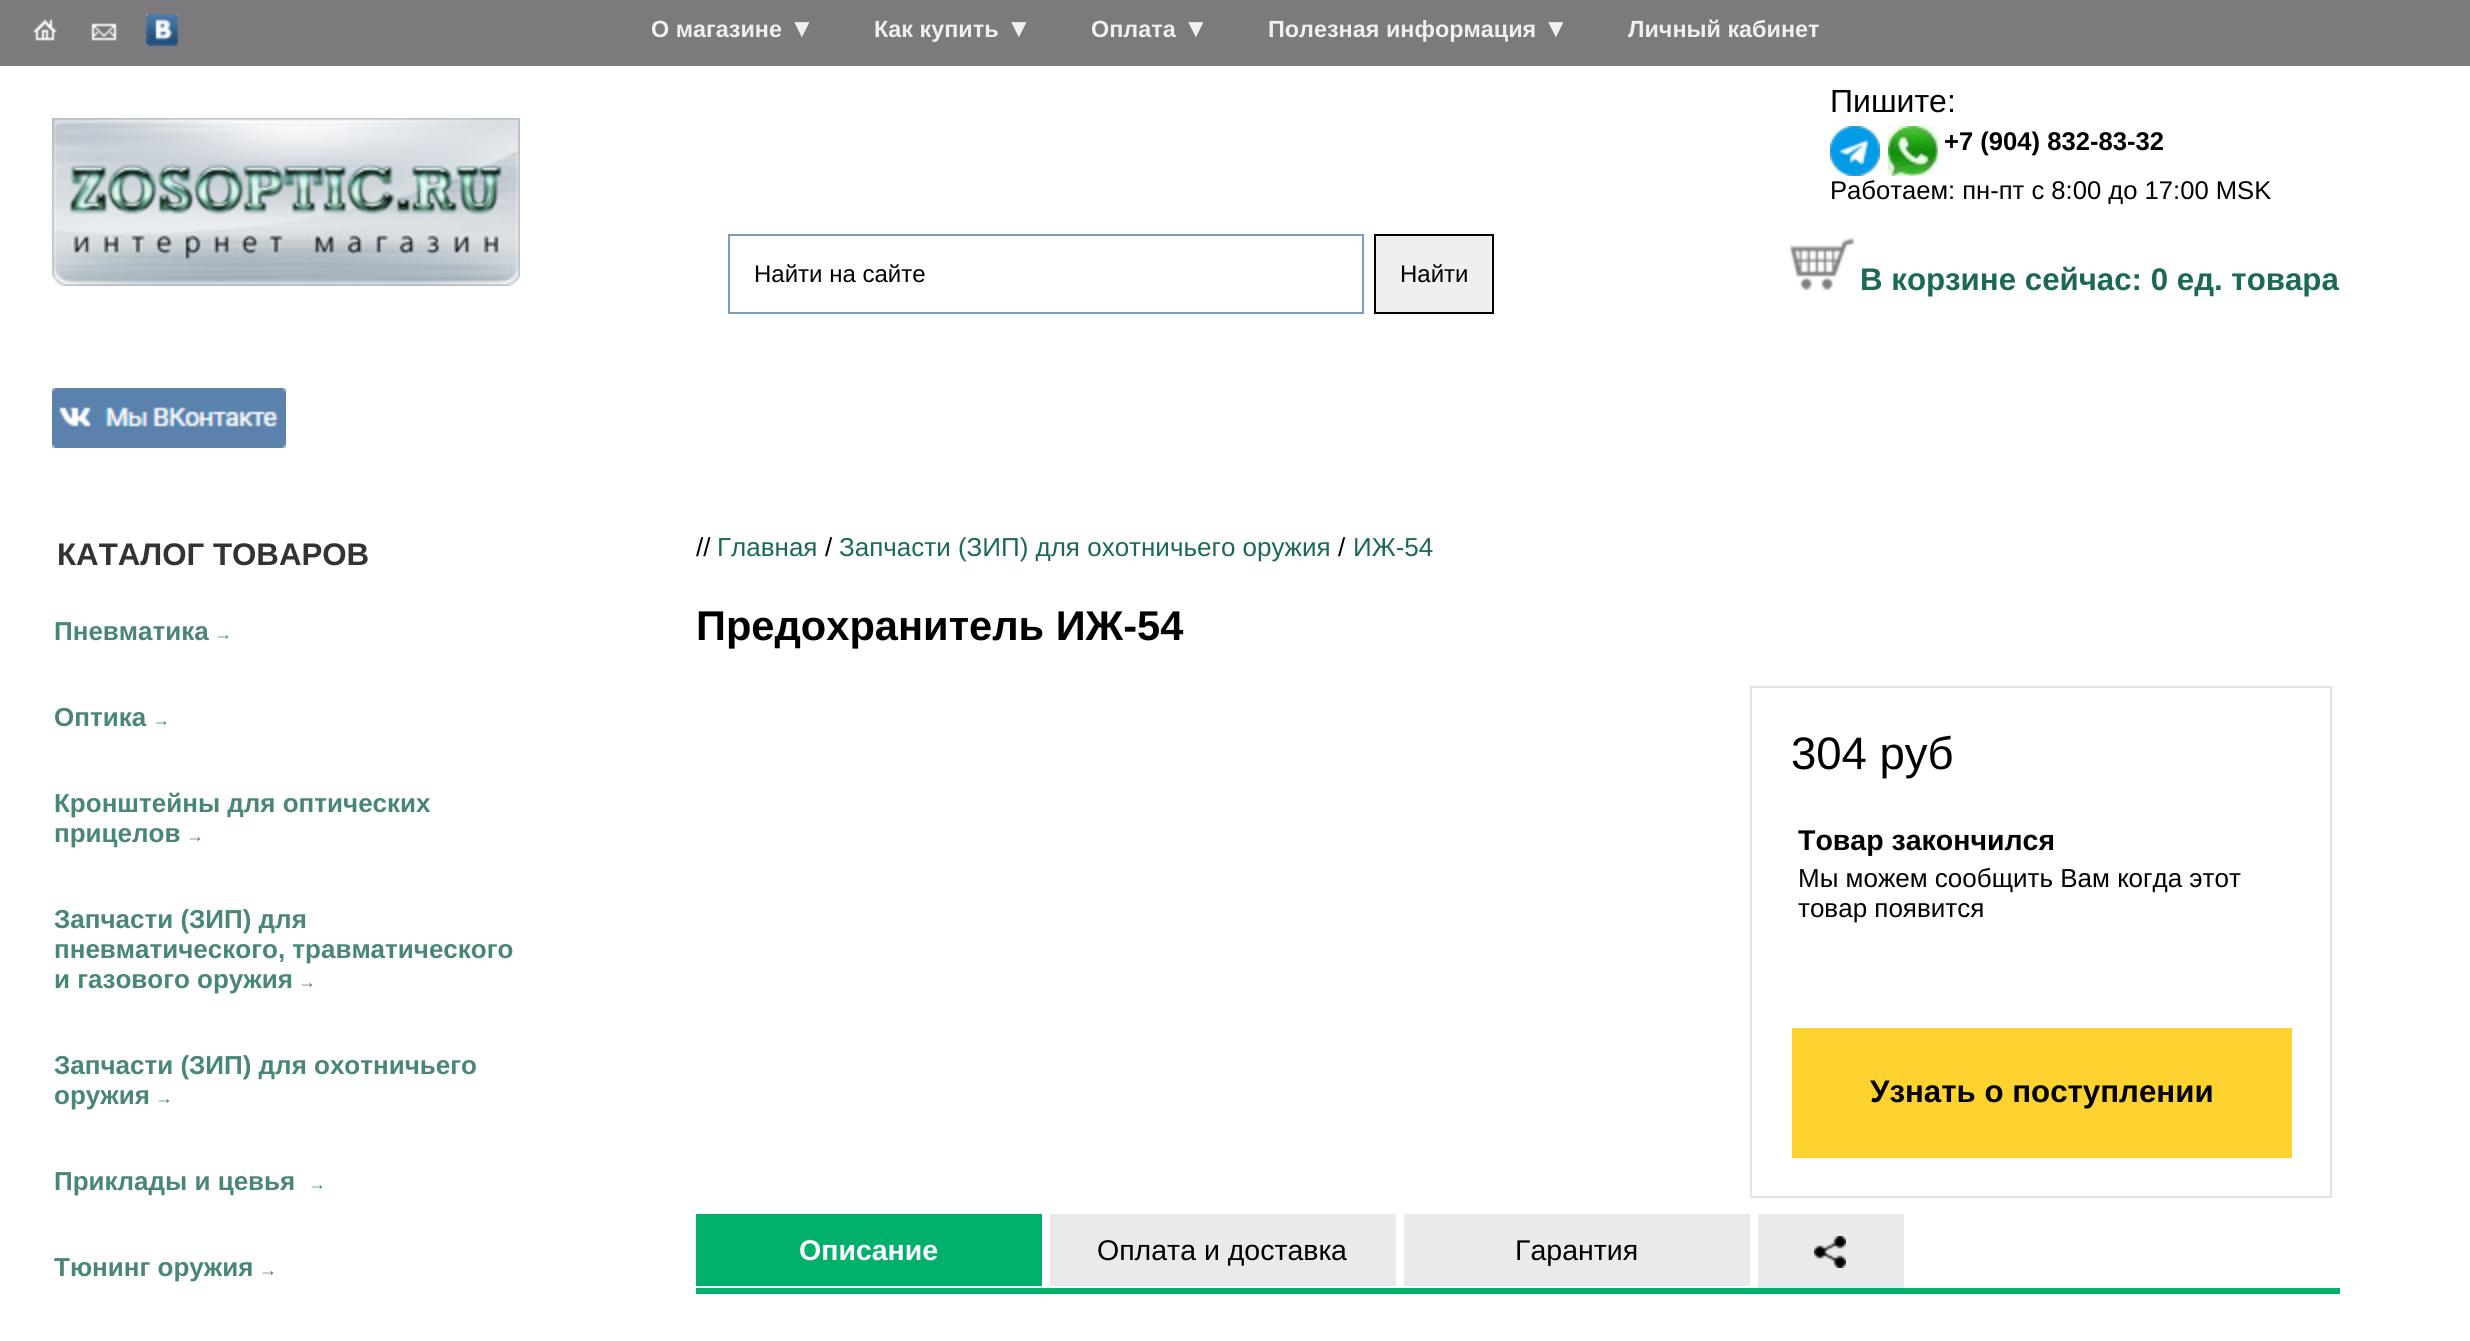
import math
import cairo

surface = cairo.ImageSurface(cairo.FORMAT_RGB24, 2470, 1341)
ctx = cairo.Context(surface)
options = cairo.FontOptions()
options.set_hint_metrics(cairo.HINT_METRICS_OFF)
options.set_hint_style(cairo.HINT_STYLE_NONE)
ctx.set_font_options(options)
ctx.set_miter_limit(4)


def set_color(code):
    ctx.set_source_rgb(*(v / 255 for v in bytes.fromhex(code[-6:])))


def draw_text(x, y, s, family, size, color, bold=False, italic=False):
    ctx.select_font_face(family, cairo.FONT_SLANT_ITALIC if italic else cairo.FONT_SLANT_NORMAL, cairo.FONT_WEIGHT_BOLD if bold else cairo.FONT_WEIGHT_NORMAL)
    ctx.set_font_size(size)
    set_color(color)
    ctx.move_to(x, y)
    ctx.show_text(s)


def fill_rect(x, y, w, h, color):
    set_color(color)
    ctx.rectangle(x, y, w, h)
    ctx.fill()


def draw_image(path, x, y, w, h):
    ctx.save()
    ctx.set_source_surface(cairo.ImageSurface.create_from_png(path), x, y)
    ctx.rectangle(x, y, w, h)
    ctx.fill()
    ctx.restore()


set_color("#ffffff")
ctx.paint()
fill_rect(0, 0, 2470, 66, "#7c7a7c")
draw_image("assets/img1.png", 33, 19, 24, 22)
draw_image("assets/img2.png", 91, 23, 26, 18)
draw_image("assets/img3.png", 146, 14, 32, 32)
draw_text(651, 37, "О магазине", "Liberation Sans", 23.4, "#f0f0f0", bold=True)
draw_text(789, 37, "▼", "Liberation Sans", 26, "#f0f0f0")
draw_text(874, 37, "Как купить", "Liberation Sans", 23.4, "#f0f0f0", bold=True)
draw_text(1006, 37, "▼", "Liberation Sans", 26, "#f0f0f0")
draw_text(1091, 37, "Оплата", "Liberation Sans", 23.4, "#f0f0f0", bold=True)
draw_text(1183, 37, "▼", "Liberation Sans", 26, "#f0f0f0")
draw_text(1268, 37, "Полезная информация", "Liberation Sans", 23.4, "#f0f0f0", bold=True)
draw_text(1543, 37, "▼", "Liberation Sans", 26, "#f0f0f0")
draw_text(1628, 37, "Личный кабинет", "Liberation Sans", 23.4, "#f0f0f0", bold=True)
draw_image("assets/img4.png", 52, 118, 468, 168)
draw_image("assets/img5.png", 52, 388, 234, 60)
ctx.rectangle(729, 235, 634, 78)
set_color("#7f9db9")
ctx.stroke()
draw_text(754, 282, "Найти на сайте", "Liberation Sans", 24, "#000000")
set_color("#efefef")
ctx.rectangle(1375, 235, 118, 78)
ctx.fill_preserve()
set_color("#000000")
ctx.stroke()
draw_text(1400, 282, "Найти", "Liberation Sans", 24, "#000000")
draw_text(1830, 112, "Пишите:", "Liberation Sans", 32, "#000000")
draw_image("assets/img6.png", 1830, 126, 50, 50)
draw_image("assets/img7.png", 1888, 126, 50, 50)
draw_text(1944, 150, "+7 (904) 832-83-32", "Liberation Sans", 25.6, "#000000", bold=True)
draw_text(1830, 199, "Работаем: пн-пт с 8:00 до 17:00 MSK", "Liberation Sans", 25.6, "#000000")
draw_image("assets/img8.png", 1790, 238, 64, 52)
draw_text(1860, 290, "В корзине сейчас: 0 ед. товара", "Liberation Sans", 31.25, "#1c6857", bold=True)
draw_text(57, 565, "КАТАЛОГ ТОВАРОВ", "Liberation Sans", 31.25, "#333333", bold=True)
draw_text(54, 640, "Пневматика", "Liberation Sans", 26, "#498679", bold=True)
draw_text(214, 640, "→", "Liberation Serif", 18, "#498679")
draw_text(54, 726, "Оптика", "Liberation Sans", 26, "#498679", bold=True)
draw_text(152, 726, "→", "Liberation Serif", 18, "#498679")
draw_text(54, 812, "Кронштейны для оптических", "Liberation Sans", 26, "#498679", bold=True)
draw_text(54, 842, "прицелов", "Liberation Sans", 26, "#498679", bold=True)
draw_text(186, 842, "→", "Liberation Serif", 18, "#498679")
draw_text(54, 928, "Запчасти (ЗИП) для", "Liberation Sans", 26, "#498679", bold=True)
draw_text(54, 958, "пневматического, травматического", "Liberation Sans", 26, "#498679", bold=True)
draw_text(54, 988, "и газового оружия", "Liberation Sans", 26, "#498679", bold=True)
draw_text(298, 988, "→", "Liberation Serif", 18, "#498679")
draw_text(54, 1074, "Запчасти (ЗИП) для охотничьего", "Liberation Sans", 26, "#498679", bold=True)
draw_text(54, 1104, "оружия", "Liberation Sans", 26, "#498679", bold=True)
draw_text(155, 1104, "→", "Liberation Serif", 18, "#498679")
draw_text(54, 1190, "Приклады и цевья", "Liberation Sans", 26, "#498679", bold=True)
draw_text(308, 1190, "→", "Liberation Serif", 18, "#498679")
draw_text(54, 1276, "Тюнинг оружия", "Liberation Sans", 26, "#498679", bold=True)
draw_text(259, 1276, "→", "Liberation Serif", 18, "#498679")
draw_text(696, 556, "//", "Liberation Sans", 26, "#000000")
draw_text(717, 556, "Главная", "Liberation Sans", 26, "#1c6857")
draw_text(825, 556, "/", "Liberation Sans", 26, "#000000")
draw_text(839, 556, "Запчасти (ЗИП) для охотничьего оружия", "Liberation Sans", 26, "#1c6857")
draw_text(1338, 556, "/", "Liberation Sans", 26, "#000000")
draw_text(1353, 556, "ИЖ-54", "Liberation Sans", 26, "#1c6857")
draw_text(696, 640, "Предохранитель ИЖ-54", "Liberation Sans", 41.6, "#000000", bold=True)
ctx.rectangle(1751, 687, 580, 510)
set_color("#e6e2e6")
ctx.stroke()
draw_text(1791, 769, "304 руб", "Liberation Sans", 45.5, "#000000")
draw_text(1798, 850, "Товар закончился", "Liberation Sans", 28.5, "#000000", bold=True)
draw_text(1798, 887, "Мы можем сообщить Вам когда этот", "Liberation Sans", 26, "#000000")
draw_text(1798, 917, "товар появится", "Liberation Sans", 26, "#000000")
fill_rect(1792, 1028, 500, 130, "#ffd32f")
draw_text(1870, 1102, "Узнать о поступлении", "Liberation Sans", 31.25, "#000000", bold=True)
fill_rect(696, 1214, 346, 72, "#00b06b")
draw_text(799, 1260, "Описание", "Liberation Sans", 28.5, "#ffffff", bold=True)
fill_rect(1050, 1214, 346, 72, "#e9eaeb")
draw_text(1097, 1260, "Оплата и доставка", "Liberation Sans", 28.5, "#000000")
fill_rect(1404, 1214, 346, 72, "#e9eaeb")
draw_text(1515, 1260, "Гарантия", "Liberation Sans", 28.5, "#000000")
fill_rect(1758, 1214, 146, 74, "#e9eaeb")
draw_image("assets/img9.png", 1814, 1236, 32, 32)
fill_rect(696, 1288, 1644, 6, "#00b06b")
surface.write_to_png("output.png")
